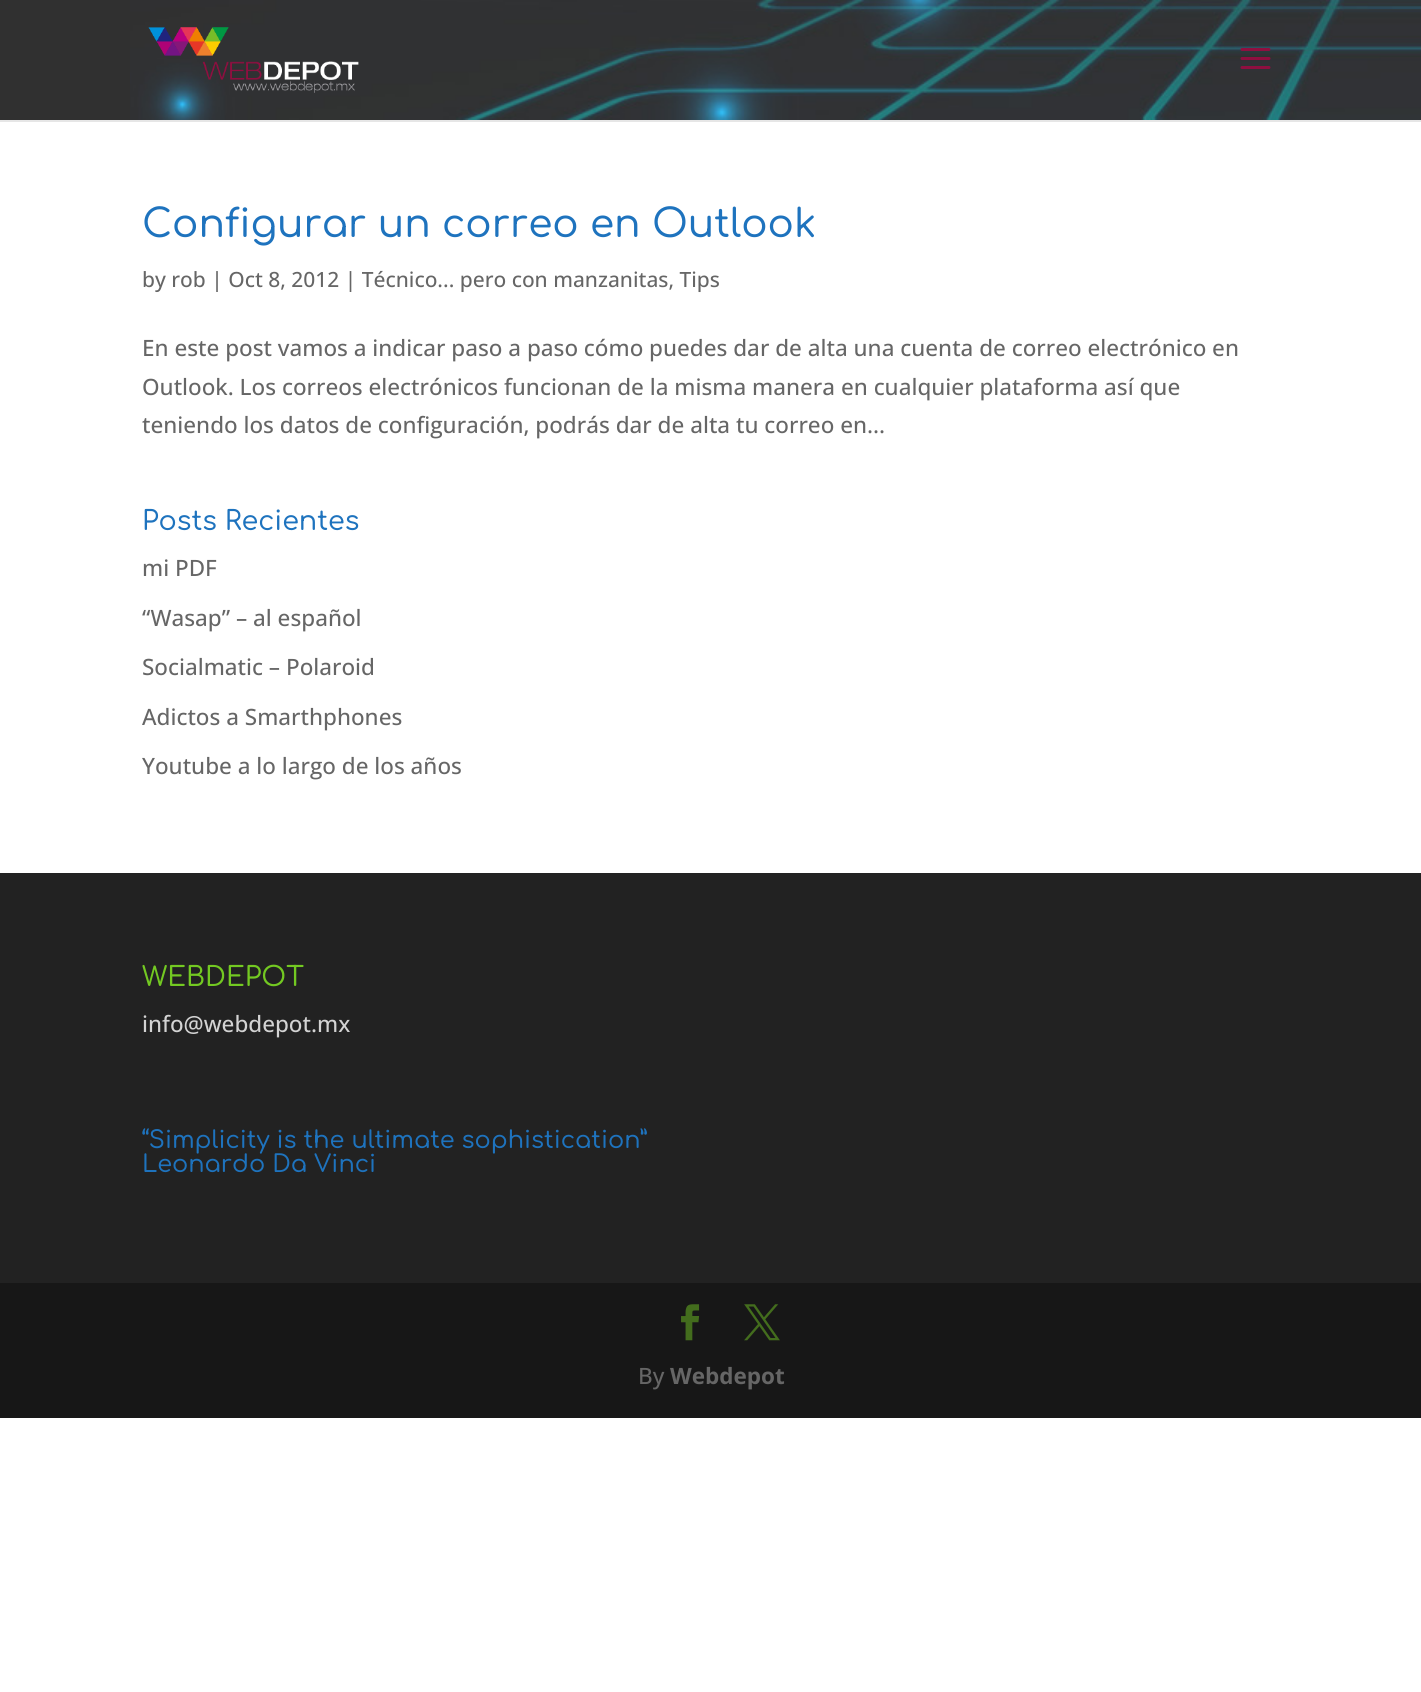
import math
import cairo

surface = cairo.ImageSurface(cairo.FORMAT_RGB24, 1421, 1692)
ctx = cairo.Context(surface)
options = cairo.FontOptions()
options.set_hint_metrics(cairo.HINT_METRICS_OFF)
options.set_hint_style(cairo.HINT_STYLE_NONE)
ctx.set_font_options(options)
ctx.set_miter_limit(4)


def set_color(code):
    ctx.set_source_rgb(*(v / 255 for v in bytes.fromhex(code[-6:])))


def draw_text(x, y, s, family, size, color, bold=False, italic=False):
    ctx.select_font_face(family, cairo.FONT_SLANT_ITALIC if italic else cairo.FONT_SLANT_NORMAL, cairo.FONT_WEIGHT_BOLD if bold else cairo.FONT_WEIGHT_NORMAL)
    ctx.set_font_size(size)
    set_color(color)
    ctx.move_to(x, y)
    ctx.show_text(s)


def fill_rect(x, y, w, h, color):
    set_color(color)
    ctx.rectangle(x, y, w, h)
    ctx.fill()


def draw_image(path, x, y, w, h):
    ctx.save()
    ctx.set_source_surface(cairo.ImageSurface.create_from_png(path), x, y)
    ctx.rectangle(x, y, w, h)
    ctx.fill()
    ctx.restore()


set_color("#ffffff")
ctx.paint()
fill_rect(0, 120, 1421, 2, "#e6e6e6")
fill_rect(0, 0, 130, 120, "#303030")
draw_image("assets/img1.png", 130, 0, 1291, 120)
draw_image("assets/img2.png", 148, 27, 211, 66)
draw_image("assets/img3.png", 1240, 48, 31, 21)
draw_text(142, 237, "Configurar un correo en Outlook", "Comfortaa Medium", 39, "#1e73be")
draw_text(142, 287, "by rob | Oct 8, 2012 | Técnico... pero con manzanitas, Tips", "Open Sans Medium", 21, "#666666")
draw_text(142, 356, "En este post vamos a indicar paso a paso cómo puedes dar de alta una cuenta de correo electrónico en", "Open Sans Medium", 22.5, "#666666")
draw_text(142, 395, "Outlook. Los correos electrónicos funcionan de la misma manera en cualquier plataforma así que", "Open Sans Medium", 22.5, "#666666")
draw_text(142, 433, "teniendo los datos de configuración, podrás dar de alta tu correo en...", "Open Sans Medium", 22.5, "#666666")
draw_text(142, 530, "Posts Recientes", "Comfortaa Medium", 27, "#1e73be")
draw_text(142, 576, "mi PDF", "Open Sans Medium", 22.5, "#666666")
draw_text(142, 626, "“Wasap” – al español", "Open Sans Medium", 22.5, "#666666")
draw_text(142, 675, "Socialmatic – Polaroid", "Open Sans Medium", 22.5, "#666666")
draw_text(142, 725, "Adictos a Smarthphones", "Open Sans Medium", 22.5, "#666666")
draw_text(142, 774, "Youtube a lo largo de los años", "Open Sans Medium", 22.5, "#666666")
fill_rect(0, 873, 1421, 410, "#222222")
draw_text(142, 986, "WEBDEPOT", "Comfortaa Medium", 27, "#73c922")
draw_text(142, 1032, "info@webdepot.mx", "Open Sans Medium", 22.5, "#d3d3d3")
draw_text(142, 1148, "“Simplicity is the ultimate sophistication”", "Comfortaa Medium", 24, "#1e73be")
draw_text(142, 1172, "Leonardo Da Vinci", "Comfortaa Medium", 24, "#1e73be")
fill_rect(0, 1283, 1421, 135, "#171717")
draw_image("assets/img4.png", 681, 1304, 19, 37)
draw_image("assets/img5.png", 744, 1304, 36, 37)
draw_text(638, 1384, "By", "Open Sans Medium", 22.5, "#666666")
draw_text(670, 1384, "Webdepot", "Open Sans", 22.5, "#666666", bold=True)
surface.write_to_png("output.png")
